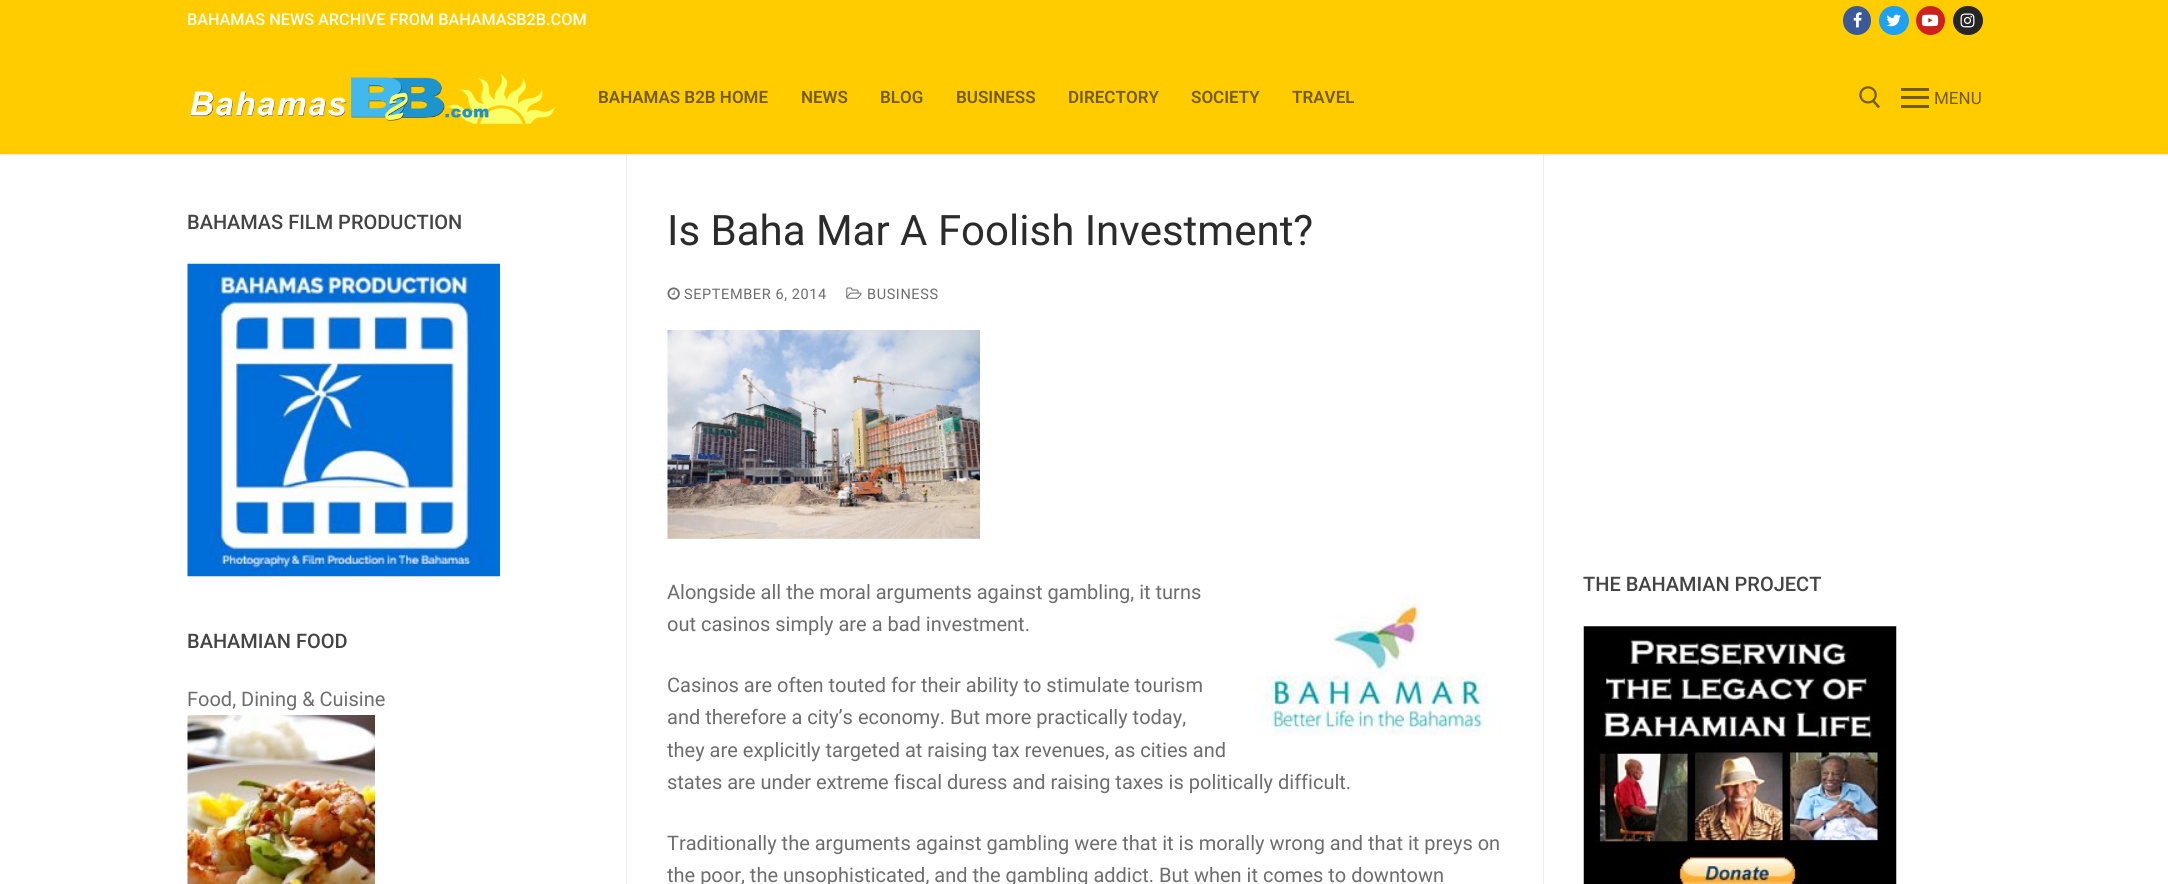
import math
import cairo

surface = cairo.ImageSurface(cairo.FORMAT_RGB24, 2168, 884)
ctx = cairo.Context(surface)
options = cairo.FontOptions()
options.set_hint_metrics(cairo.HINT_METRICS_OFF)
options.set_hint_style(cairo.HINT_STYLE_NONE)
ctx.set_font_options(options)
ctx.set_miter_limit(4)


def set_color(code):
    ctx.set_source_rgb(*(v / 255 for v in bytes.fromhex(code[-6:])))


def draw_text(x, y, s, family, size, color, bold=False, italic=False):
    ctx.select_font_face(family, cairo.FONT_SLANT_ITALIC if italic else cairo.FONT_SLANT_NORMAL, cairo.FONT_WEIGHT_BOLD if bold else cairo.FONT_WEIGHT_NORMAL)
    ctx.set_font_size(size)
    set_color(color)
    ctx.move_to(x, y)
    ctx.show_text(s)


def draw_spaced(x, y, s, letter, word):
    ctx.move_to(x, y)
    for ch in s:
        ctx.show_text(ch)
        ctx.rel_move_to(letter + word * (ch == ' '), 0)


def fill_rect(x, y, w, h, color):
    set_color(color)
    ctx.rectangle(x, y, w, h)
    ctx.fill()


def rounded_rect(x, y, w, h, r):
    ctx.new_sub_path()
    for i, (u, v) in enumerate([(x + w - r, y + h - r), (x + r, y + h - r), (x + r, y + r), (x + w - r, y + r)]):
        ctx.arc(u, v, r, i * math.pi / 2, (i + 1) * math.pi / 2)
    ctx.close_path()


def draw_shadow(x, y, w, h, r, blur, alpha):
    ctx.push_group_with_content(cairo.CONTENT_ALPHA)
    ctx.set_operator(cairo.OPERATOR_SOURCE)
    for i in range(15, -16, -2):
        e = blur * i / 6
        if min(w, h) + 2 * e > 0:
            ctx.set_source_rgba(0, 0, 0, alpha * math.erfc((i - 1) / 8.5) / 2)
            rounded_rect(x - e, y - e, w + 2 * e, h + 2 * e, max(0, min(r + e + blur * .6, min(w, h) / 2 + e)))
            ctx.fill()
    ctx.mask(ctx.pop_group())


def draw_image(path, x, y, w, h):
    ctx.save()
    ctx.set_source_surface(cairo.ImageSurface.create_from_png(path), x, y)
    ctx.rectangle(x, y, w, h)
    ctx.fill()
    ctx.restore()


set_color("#ffffff")
ctx.paint()
fill_rect(0, 0, 2168, 41, "#ffcc00")
draw_text(187, 25, "BAHAMAS NEWS ARCHIVE FROM BAHAMASB2B.COM", "Roboto Medium", 16.25, "#fffefc")
set_color("#3b5998")
rounded_rect(1843, 6, 28, 29, 14)
ctx.fill()
draw_image("assets/img1.png", 1853, 12, 9, 16)
set_color("#1da1f2")
rounded_rect(1879, 6, 30, 29, 14.5)
ctx.fill()
draw_image("assets/img2.png", 1886, 14, 15, 13)
set_color("#cd201f")
ctx.arc(1930.5, 20.5, 14.5, 0, 2 * math.pi)
ctx.fill()
draw_image("assets/img3.png", 1921, 14, 18, 13)
set_color("#262626")
rounded_rect(1953, 6, 30, 29, 14.5)
ctx.fill()
draw_image("assets/img4.png", 1960, 13, 15, 15)
fill_rect(1543, 154, 1, 730, "#eaecee")
fill_rect(626, 154, 1, 730, "#eaecee")
set_color("#e1e5ea")
draw_shadow(0, 43, 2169, 112, 0, 1, 1)
fill_rect(0, 41, 2168, 113, "#ffcc00")
draw_image("assets/img5.png", 190, 73, 366, 51)
draw_text(598, 103, "BAHAMAS B2B HOME", "Roboto SemiBold", 17, "#735c00")
draw_text(801, 103, "NEWS", "Roboto SemiBold", 17, "#735c00")
draw_text(880, 103, "BLOG", "Roboto SemiBold", 17, "#735c00")
draw_text(956, 103, "BUSINESS", "Roboto SemiBold", 17, "#735c00")
draw_text(1068, 103, "DIRECTORY", "Roboto SemiBold", 17, "#735c00")
draw_text(1191, 103, "SOCIETY", "Roboto SemiBold", 17, "#735c00")
draw_text(1292, 103, "TRAVEL", "Roboto SemiBold", 17, "#735c00")
draw_image("assets/img6.png", 1859, 86, 21, 23)
fill_rect(1901, 96, 28, 3, "#735c00")
fill_rect(1901, 88, 28, 3, "#735c00")
fill_rect(1901, 105, 28, 3, "#735c00")
draw_text(1934, 104, "MENU", "Roboto", 17, "#735c00")
draw_text(187, 229, "BAHAMAS FILM PRODUCTION", "Roboto Medium", 20, "#444444")
draw_image("assets/img7.png", 187, 263, 313, 314)
draw_text(187, 648, "BAHAMIAN FOOD", "Roboto Medium", 20, "#444444")
draw_text(187, 706, "Food, Dining & Cuisine", "Roboto", 20, "#6d6d6d")
draw_image("assets/img8.png", 187, 715, 188, 169)
draw_text(667, 245, "Is Baha Mar A Foolish Investment?", "Roboto", 42, "#2b2b2b")
draw_image("assets/img9.png", 667, 287, 13, 13)
ctx.set_font_size(14.5)
set_color("#6d6d6d")
draw_spaced(684, 299, "SEPTEMBER 6, 2014", 0.6, 0)
draw_image("assets/img10.png", 846, 287, 16, 12)
draw_spaced(867, 299, "BUSINESS", 0.6, 0)
draw_image("assets/img11.png", 667, 330, 313, 209)
draw_text(667, 599, "Alongside all the moral arguments against gambling, it turns", "Roboto", 20, "#6d6d6d")
draw_image("assets/img12.png", 1256, 595, 240, 142)
draw_text(667, 631, "out casinos simply are a bad investment.", "Roboto", 20, "#6d6d6d")
draw_text(667, 692, "Casinos are often touted for their ability to stimulate tourism", "Roboto", 20, "#6d6d6d")
draw_text(667, 724, "and therefore a city’s economy. But more practically today,", "Roboto", 20, "#6d6d6d")
draw_text(667, 757, "they are explicitly targeted at raising tax revenues, as cities and", "Roboto", 20, "#6d6d6d")
draw_text(667, 789, "states are under extreme fiscal duress and raising taxes is politically difficult.", "Roboto", 20, "#6d6d6d")
draw_text(667, 850, "Traditionally the arguments against gambling were that it is morally wrong and that it preys on", "Roboto", 20, "#6d6d6d")
draw_text(667, 882, "the poor, the unsophisticated, and the gambling addict. But when it comes to downtown", "Roboto", 20, "#6d6d6d")
draw_text(1583, 591, "THE BAHAMIAN PROJECT", "Roboto Medium", 20, "#444444")
draw_image("assets/img13.png", 1583, 626, 314, 258)
surface.write_to_png("output.png")
